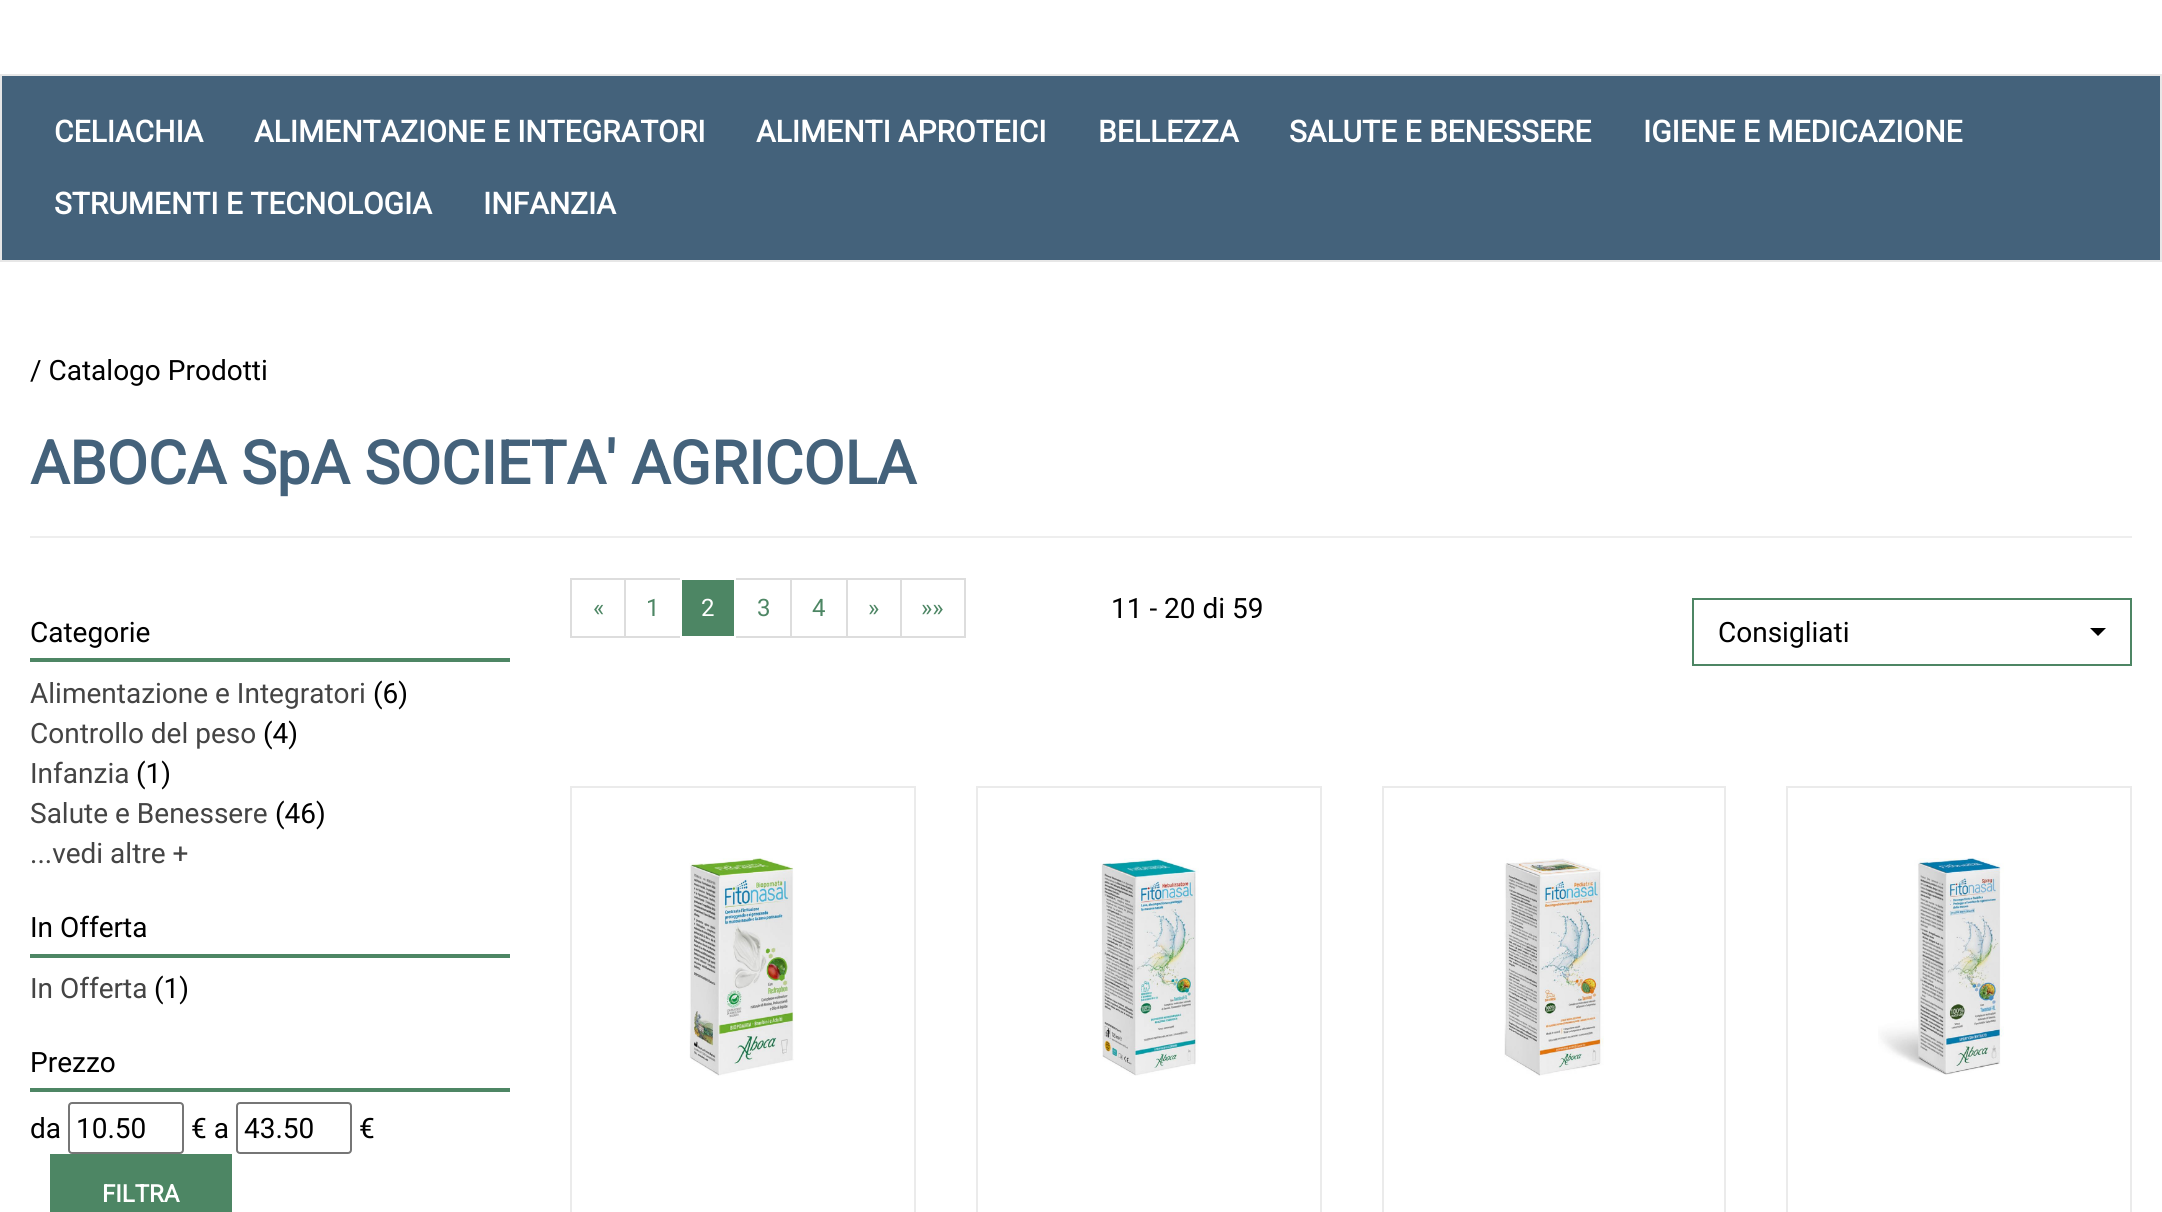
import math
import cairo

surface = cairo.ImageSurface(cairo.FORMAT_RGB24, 2162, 1212)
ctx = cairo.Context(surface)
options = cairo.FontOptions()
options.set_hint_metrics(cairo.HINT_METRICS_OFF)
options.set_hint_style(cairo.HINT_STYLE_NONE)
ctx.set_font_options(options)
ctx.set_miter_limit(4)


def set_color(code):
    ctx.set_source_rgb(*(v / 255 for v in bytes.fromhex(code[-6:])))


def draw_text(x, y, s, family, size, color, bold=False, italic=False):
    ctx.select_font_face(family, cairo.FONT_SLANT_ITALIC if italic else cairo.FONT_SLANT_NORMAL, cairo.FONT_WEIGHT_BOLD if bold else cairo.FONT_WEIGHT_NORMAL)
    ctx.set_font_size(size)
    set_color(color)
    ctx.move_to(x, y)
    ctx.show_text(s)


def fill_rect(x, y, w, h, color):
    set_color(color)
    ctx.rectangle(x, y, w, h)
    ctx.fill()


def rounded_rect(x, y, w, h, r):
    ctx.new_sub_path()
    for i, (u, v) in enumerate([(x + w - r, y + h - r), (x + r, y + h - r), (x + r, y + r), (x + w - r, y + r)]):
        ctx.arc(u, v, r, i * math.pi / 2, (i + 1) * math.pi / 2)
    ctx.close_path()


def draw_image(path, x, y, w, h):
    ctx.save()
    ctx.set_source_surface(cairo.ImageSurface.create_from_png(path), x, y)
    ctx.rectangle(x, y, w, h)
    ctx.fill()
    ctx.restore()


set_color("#ffffff")
ctx.paint()
set_color("#44627b")
ctx.rectangle(1, 75, 2160, 186)
ctx.fill_preserve()
set_color("#e7e7e7")
ctx.stroke()
draw_text(54, 142, "CELIACHIA", "Roboto", 30, "#ffffff", bold=True)
draw_text(254, 142, "ALIMENTAZIONE E INTEGRATORI", "Roboto", 30, "#ffffff", bold=True)
draw_text(756, 142, "ALIMENTI APROTEICI", "Roboto", 30, "#ffffff", bold=True)
draw_text(1098, 142, "BELLEZZA", "Roboto", 30, "#ffffff", bold=True)
draw_text(1289, 142, "SALUTE E BENESSERE", "Roboto", 30, "#ffffff", bold=True)
draw_text(1643, 142, "IGIENE E MEDICAZIONE", "Roboto", 30, "#ffffff", bold=True)
draw_text(54, 214, "STRUMENTI E TECNOLOGIA", "Roboto", 30, "#ffffff", bold=True)
draw_text(483, 214, "INFANZIA", "Roboto", 30, "#ffffff", bold=True)
draw_text(30, 380, "/ Catalogo Prodotti", "Roboto", 28, "#000000")
draw_text(30, 484, "ABOCA SpA SOCIETA' AGRICOLA", "Roboto", 60, "#44627b", bold=True)
fill_rect(30, 536, 2102, 2, "#eeeeee")
draw_text(30, 642, "Categorie", "Roboto", 28, "#000000")
fill_rect(30, 658, 480, 4, "#4d8664")
draw_text(30, 703, "Alimentazione e Integratori", "Roboto", 28, "#444444")
draw_text(373, 703, "(6)", "Roboto", 28, "#000000")
draw_text(30, 743, "Controllo del peso", "Roboto", 28, "#444444")
draw_text(263, 743, "(4)", "Roboto", 28, "#000000")
draw_text(30, 783, "Infanzia", "Roboto", 28, "#444444")
draw_text(136, 783, "(1)", "Roboto", 28, "#000000")
draw_text(30, 823, "Salute e Benessere", "Roboto", 28, "#444444")
draw_text(275, 823, "(46)", "Roboto", 28, "#000000")
draw_text(30, 863, "...vedi altre +", "Roboto", 28, "#444444")
draw_text(30, 937, "In Offerta", "Roboto", 28, "#000000")
fill_rect(30, 954, 480, 4, "#4d8664")
draw_text(30, 998, "In Offerta", "Roboto", 28, "#444444")
draw_text(154, 998, "(1)", "Roboto", 28, "#000000")
draw_text(30, 1072, "Prezzo", "Roboto", 28, "#000000")
fill_rect(30, 1088, 480, 4, "#4d8664")
draw_text(30, 1138, "da", "Roboto", 28, "#000000")
rounded_rect(69, 1103, 114, 50, 3)
set_color("#767676")
ctx.stroke()
draw_text(76, 1138, "10.50", "Roboto", 28, "#000000")
draw_text(191, 1138, "€ a", "Roboto", 28, "#000000")
rounded_rect(237, 1103, 114, 50, 3)
set_color("#767676")
ctx.stroke()
draw_text(244, 1138, "43.50", "Roboto", 28, "#000000")
draw_text(359, 1138, "€", "Roboto", 28, "#000000")
fill_rect(50, 1154, 182, 58, "#4d8664")
draw_text(102, 1202, "FILTRA", "Roboto", 24, "#ffffff", bold=True)
ctx.rectangle(571, 579, 54, 58)
set_color("#dddddd")
ctx.stroke()
draw_text(593, 616, "«", "Roboto", 24, "#4d8664")
ctx.rectangle(625, 579, 56, 58)
set_color("#dddddd")
ctx.stroke()
draw_text(646, 616, "1", "Roboto", 24, "#4d8664")
ctx.rectangle(735, 579, 56, 58)
set_color("#dddddd")
ctx.stroke()
set_color("#4d8664")
ctx.rectangle(681, 579, 54, 58)
ctx.fill_preserve()
set_color("#ffffff")
ctx.stroke()
draw_text(701, 616, "2", "Roboto", 24, "#ffffff")
draw_text(757, 616, "3", "Roboto", 24, "#4d8664")
ctx.rectangle(791, 579, 56, 58)
set_color("#dddddd")
ctx.stroke()
draw_text(812, 616, "4", "Roboto", 24, "#4d8664")
ctx.rectangle(847, 579, 54, 58)
set_color("#dddddd")
ctx.stroke()
draw_text(868, 616, "»", "Roboto", 24, "#4d8664")
ctx.rectangle(901, 579, 64, 58)
set_color("#dddddd")
ctx.stroke()
draw_text(921, 616, "»»", "Roboto", 24, "#4d8664")
draw_text(1111, 618, "11 - 20 di 59", "Roboto", 28, "#000000")
ctx.rectangle(1693, 599, 438, 66)
set_color("#4d8664")
ctx.stroke()
draw_text(1718, 642, "Consigliati", "Roboto", 28, "#000000")
ctx.new_path()
ctx.move_to(2090, 628)
ctx.line_to(2106, 628)
ctx.line_to(2098, 636)
ctx.close_path()
ctx.fill()
ctx.rectangle(571, 787, 344, 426)
set_color("#ebebeb")
ctx.stroke()
draw_image("assets/img1.png", 689, 858, 105, 218)
ctx.rectangle(977, 787, 344, 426)
ctx.stroke()
draw_image("assets/img2.png", 1100, 858, 99, 218)
ctx.rectangle(1383, 787, 342, 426)
ctx.stroke()
draw_image("assets/img3.png", 1504, 858, 100, 218)
ctx.rectangle(1787, 787, 344, 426)
ctx.stroke()
draw_image("assets/img4.png", 1878, 858, 126, 217)
surface.write_to_png("output.png")
